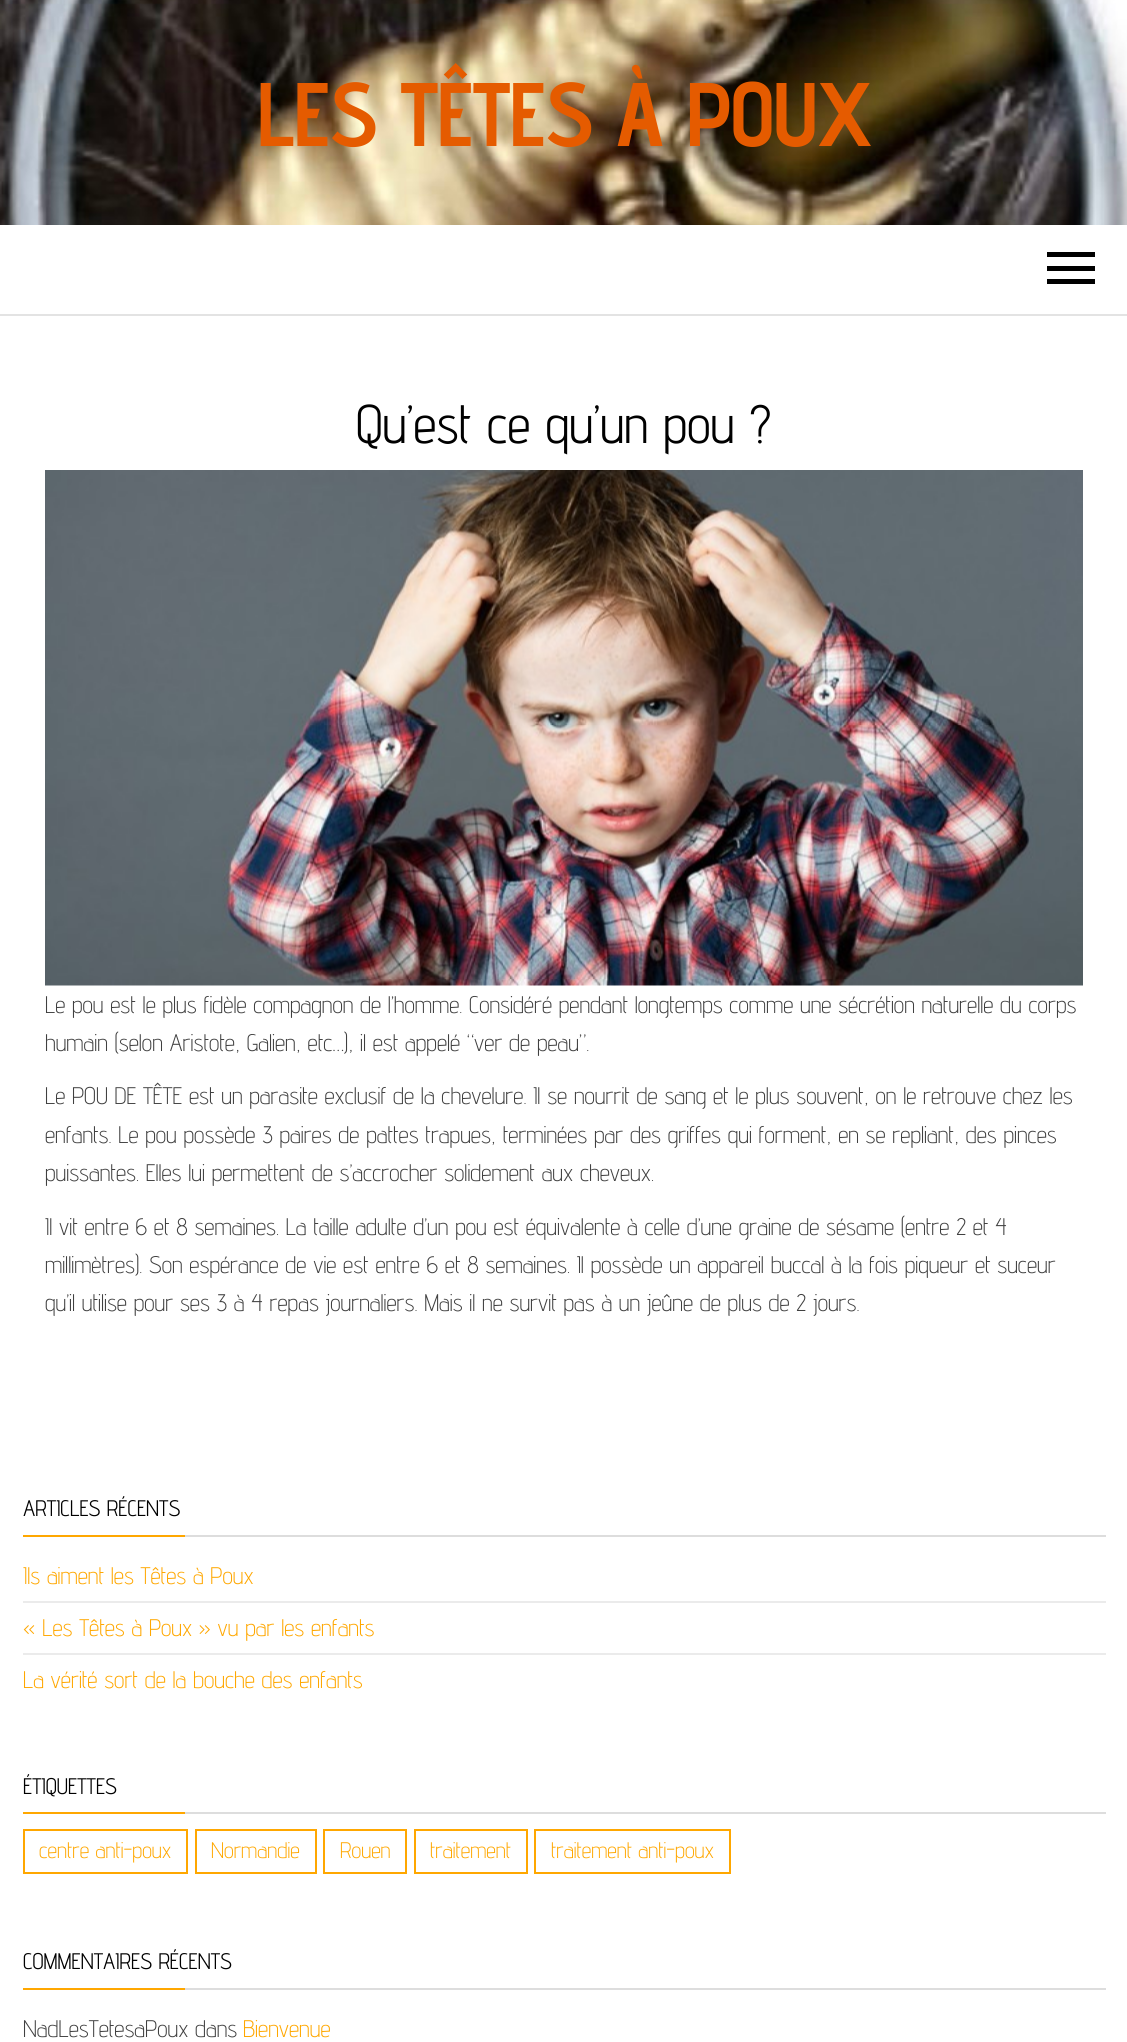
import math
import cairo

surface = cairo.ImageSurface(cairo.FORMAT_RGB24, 1127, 2042)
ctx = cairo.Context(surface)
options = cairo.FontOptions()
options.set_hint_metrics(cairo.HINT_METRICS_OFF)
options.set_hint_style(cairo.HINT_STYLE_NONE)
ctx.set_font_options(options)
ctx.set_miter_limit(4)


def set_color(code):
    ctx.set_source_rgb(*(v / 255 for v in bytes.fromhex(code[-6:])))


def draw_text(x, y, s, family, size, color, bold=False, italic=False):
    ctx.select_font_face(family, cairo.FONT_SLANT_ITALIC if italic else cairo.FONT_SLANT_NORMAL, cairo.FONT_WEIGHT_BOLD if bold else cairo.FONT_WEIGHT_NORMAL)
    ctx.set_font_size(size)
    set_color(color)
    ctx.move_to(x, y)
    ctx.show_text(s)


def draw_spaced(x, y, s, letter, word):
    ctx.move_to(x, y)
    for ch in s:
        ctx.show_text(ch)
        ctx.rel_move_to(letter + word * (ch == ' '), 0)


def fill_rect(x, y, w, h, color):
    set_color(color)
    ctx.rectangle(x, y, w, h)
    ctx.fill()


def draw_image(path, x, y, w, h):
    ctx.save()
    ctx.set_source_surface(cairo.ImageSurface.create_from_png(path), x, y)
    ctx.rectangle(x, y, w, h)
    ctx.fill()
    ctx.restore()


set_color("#ffffff")
ctx.paint()
draw_image("assets/img1.png", 0, 0, 1127, 225)
ctx.select_font_face("Advent Pro", cairo.FONT_SLANT_NORMAL, cairo.FONT_WEIGHT_BOLD)
ctx.set_font_size(90)
set_color("#e55b00")
draw_spaced(257, 146, "LES TÊTES À POUX", -1.75, 0)
fill_rect(0, 314, 1127, 2, "#e3e3e3")
fill_rect(1047, 252, 48, 5, "#000000")
fill_rect(1047, 266, 48, 5, "#000000")
fill_rect(1047, 279, 48, 5, "#000000")
draw_text(356, 443, "Qu’est ce qu’un pou ?", "Advent Pro", 54, "#000000")
draw_image("assets/img2.png", 45, 470, 1038, 516)
draw_text(45, 1013, "Le pou est le plus fidèle compagnon de l’homme. Considéré pendant longtemps comme une sécrétion naturelle du corps", "Advent Pro Light", 24, "#404040")
draw_text(45, 1051, "humain (selon Aristote, Galien, etc…), il est appelé “ver de peau”.", "Advent Pro Light", 24, "#404040")
draw_text(45, 1104, "Le POU DE TÊTE est un parasite exclusif de la chevelure. Il se nourrit de sang et le plus souvent, on le retrouve chez les", "Advent Pro Light", 24, "#404040")
draw_text(45, 1143, "enfants. Le pou possède 3 paires de pattes trapues, terminées par des griffes qui forment, en se repliant, des pinces", "Advent Pro Light", 24, "#404040")
draw_text(45, 1181, "puissantes. Elles lui permettent de s’accrocher solidement aux cheveux.", "Advent Pro Light", 24, "#404040")
draw_text(45, 1235, "Il vit entre 6 et 8 semaines. La taille adulte d’un pou est équivalente à celle d’une graine de sésame (entre 2 et 4", "Advent Pro Light", 24, "#404040")
draw_text(45, 1273, "millimètres). Son espérance de vie est entre 6 et 8 semaines. Il possède un appareil buccal à la fois piqueur et suceur", "Advent Pro Light", 24, "#404040")
draw_text(45, 1311, "qu’il utilise pour ses 3 à 4 repas journaliers. Mais il ne survit pas à un jeûne de plus de 2 jours.", "Advent Pro Light", 24, "#404040")
draw_text(23, 1516, "ARTICLES RÉCENTS", "Advent Pro", 22.5, "#000000")
fill_rect(23, 1535, 162, 2, "#ffa700")
fill_rect(185, 1535, 921, 2, "#dddddd")
fill_rect(23, 1601, 1083, 2, "#ebebeb")
draw_text(23, 1584, "Ils aiment les Têtes à Poux", "Advent Pro Light", 24, "#ffa700")
fill_rect(23, 1653, 1083, 2, "#ebebeb")
draw_text(23, 1636, "« Les Têtes à Poux » vu par les enfants", "Advent Pro Light", 24, "#ffa700")
draw_text(23, 1688, "La vérité sort de la bouche des enfants", "Advent Pro Light", 24, "#ffa700")
draw_text(23, 1794, "ÉTIQUETTES", "Advent Pro", 22.5, "#000000")
fill_rect(23, 1812, 162, 2, "#ffa700")
fill_rect(185, 1812, 921, 2, "#dddddd")
ctx.rectangle(24, 1830, 163, 43)
set_color("#ffa700")
ctx.stroke()
draw_text(39, 1858, "centre anti-poux", "Advent Pro Light", 22.5, "#ffa700")
ctx.rectangle(196, 1830, 120, 43)
ctx.stroke()
draw_text(211, 1858, "Normandie", "Advent Pro Light", 22.5, "#ffa700")
ctx.rectangle(324, 1830, 82, 43)
ctx.stroke()
draw_text(340, 1858, "Rouen", "Advent Pro Light", 22.5, "#ffa700")
ctx.rectangle(415, 1830, 112, 43)
ctx.stroke()
draw_text(430, 1858, "traitement", "Advent Pro Light", 22.5, "#ffa700")
ctx.rectangle(535, 1830, 195, 43)
ctx.stroke()
draw_text(551, 1858, "traitement anti-poux", "Advent Pro Light", 22.5, "#ffa700")
draw_text(23, 1969, "COMMENTAIRES RÉCENTS", "Advent Pro", 22.5, "#000000")
fill_rect(23, 1988, 162, 2, "#ffa700")
fill_rect(185, 1988, 921, 2, "#dddddd")
draw_text(23, 2037, "NadLesTetesaPoux dans", "Advent Pro Light", 24, "#404040")
draw_text(243, 2037, "Bienvenue", "Advent Pro Light", 24, "#ffa700")
surface.write_to_png("output.png")
